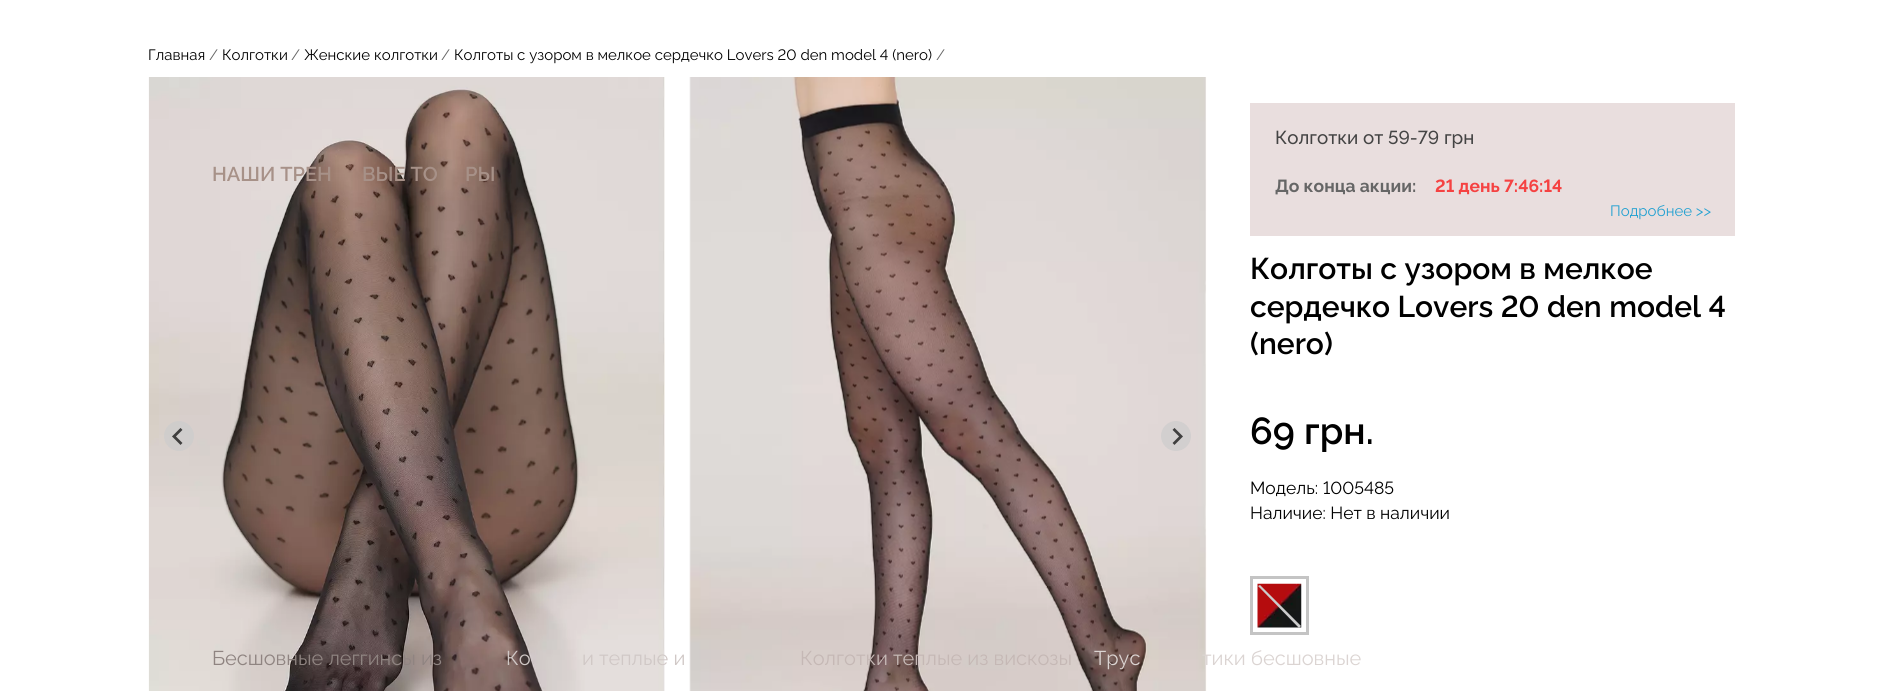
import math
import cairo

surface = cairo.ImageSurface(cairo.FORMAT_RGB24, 1883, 691)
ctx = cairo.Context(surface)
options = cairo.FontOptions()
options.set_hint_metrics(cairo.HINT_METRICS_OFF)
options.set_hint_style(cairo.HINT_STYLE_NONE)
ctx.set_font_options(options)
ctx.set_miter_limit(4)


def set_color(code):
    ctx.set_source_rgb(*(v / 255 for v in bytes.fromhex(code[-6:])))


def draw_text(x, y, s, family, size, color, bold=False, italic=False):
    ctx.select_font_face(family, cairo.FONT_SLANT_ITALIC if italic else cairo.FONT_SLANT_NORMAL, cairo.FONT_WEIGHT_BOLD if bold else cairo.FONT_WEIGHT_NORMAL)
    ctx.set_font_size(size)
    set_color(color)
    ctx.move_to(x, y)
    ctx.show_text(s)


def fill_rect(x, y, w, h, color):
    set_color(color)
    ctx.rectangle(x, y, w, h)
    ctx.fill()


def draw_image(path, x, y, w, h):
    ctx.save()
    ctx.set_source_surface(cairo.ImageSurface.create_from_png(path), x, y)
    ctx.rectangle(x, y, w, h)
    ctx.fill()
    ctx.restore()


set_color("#ffffff")
ctx.paint()
draw_text(148, 60, "Главная", "Raleway Thin", 15, "#000000")
draw_text(209, 60, "/", "Raleway Thin", 15, "#666666")
draw_text(222, 60, "Колготки", "Raleway Thin", 15, "#000000")
draw_text(291, 60, "/", "Raleway Thin", 15, "#666666")
draw_text(304, 60, "Женские колготки", "Raleway Thin", 15, "#000000")
draw_text(441, 60, "/", "Raleway Thin", 15, "#666666")
draw_text(454, 60, "Колготы с узором в мелкое сердечко Lovers 20 den model 4 (nero)", "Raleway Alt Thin", 15, "#000000")
draw_text(936, 60, "/", "Raleway Thin", 15, "#666666")
draw_image("assets/img1.png", 148, 77, 517, 614)
draw_image("assets/img2.png", 689, 77, 518, 614)
ctx.set_source_rgba(0.8, 0.8, 0.8, 0.7)
ctx.arc(179, 436, 15, 0, 2 * math.pi)
ctx.fill()
draw_image("assets/img3.png", 172, 428, 11, 17)
set_color("#d2cfcf")
ctx.arc(1176, 436, 15, 0, 2 * math.pi)
ctx.fill()
draw_image("assets/img4.png", 1172, 428, 11, 17)
fill_rect(1250, 103, 485, 133, "#e9dede")
draw_text(1275, 144, "Колготки от 59-79 грн", "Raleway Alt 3 Thin", 18.75, "#444444")
draw_text(1275, 192, "До конца акции:", "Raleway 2 Thin", 17.5, "#666666")
draw_text(1435, 192, "21 день 7:46:14", "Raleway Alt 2 Thin", 17.5, "#f54242")
draw_text(1610, 216, "Подробнее >>", "Raleway Thin", 15, "#23a1d1")
draw_text(1250, 279, "Колготы с узором в мелкое", "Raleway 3 Thin", 30, "#000000")
draw_text(1250, 317, "сердечко Lovers 20 den model 4", "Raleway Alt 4 Thin", 30, "#000000")
draw_text(1250, 354, "(nero)", "Raleway 3 Thin", 30, "#000000")
draw_text(1250, 444, "69 грн.", "Raleway 3 Thin", 37.5, "#000000")
draw_text(1250, 494, "Модель:", "Raleway Thin", 17.5, "#000000")
draw_text(1323, 494, "1005485", "Raleway Alt Thin", 17.5, "#000000")
draw_text(1250, 519, "Наличие: Нет в наличии", "Raleway Thin", 17.5, "#000000")
ctx.rectangle(1251.5, 577.5, 56, 56)
set_color("#c4c4c4")
ctx.set_line_width(3)
ctx.stroke()
draw_image("assets/img5.png", 1257, 583, 45, 45)
set_color("#cccccc")
ctx.new_path()
ctx.move_to(1260, 585)
ctx.line_to(1301, 626)
ctx.line_to(1299, 628)
ctx.line_to(1258, 586)
ctx.close_path()
ctx.fill()
draw_text(212, 181, "НАШИ ТРЕН", "Raleway 3 Thin", 20, "#a79188")
draw_text(362, 181, "ВЫЕ ТО", "Raleway 3 Thin", 20, "#a79188")
draw_text(465, 181, "РЫ", "Raleway 3 Thin", 20, "#a79188")
draw_text(212, 665, "Бесшовные леггинсы из", "Raleway Thin", 20, "#8f8481")
draw_text(506, 665, "Ко", "Raleway Thin", 20, "#d0c8c6")
draw_text(582, 665, "и теплые и", "Raleway Thin", 20, "#d0c8c6")
draw_text(800, 665, "Колготки теплые из вискозы", "Raleway Thin", 20, "#c5b8b5")
draw_text(1094, 665, "Трус", "Raleway Thin", 20, "#dbd4d2")
draw_text(1202, 665, "тики бесшовные", "Raleway Thin", 20, "#dbd4d2")
surface.write_to_png("output.png")
